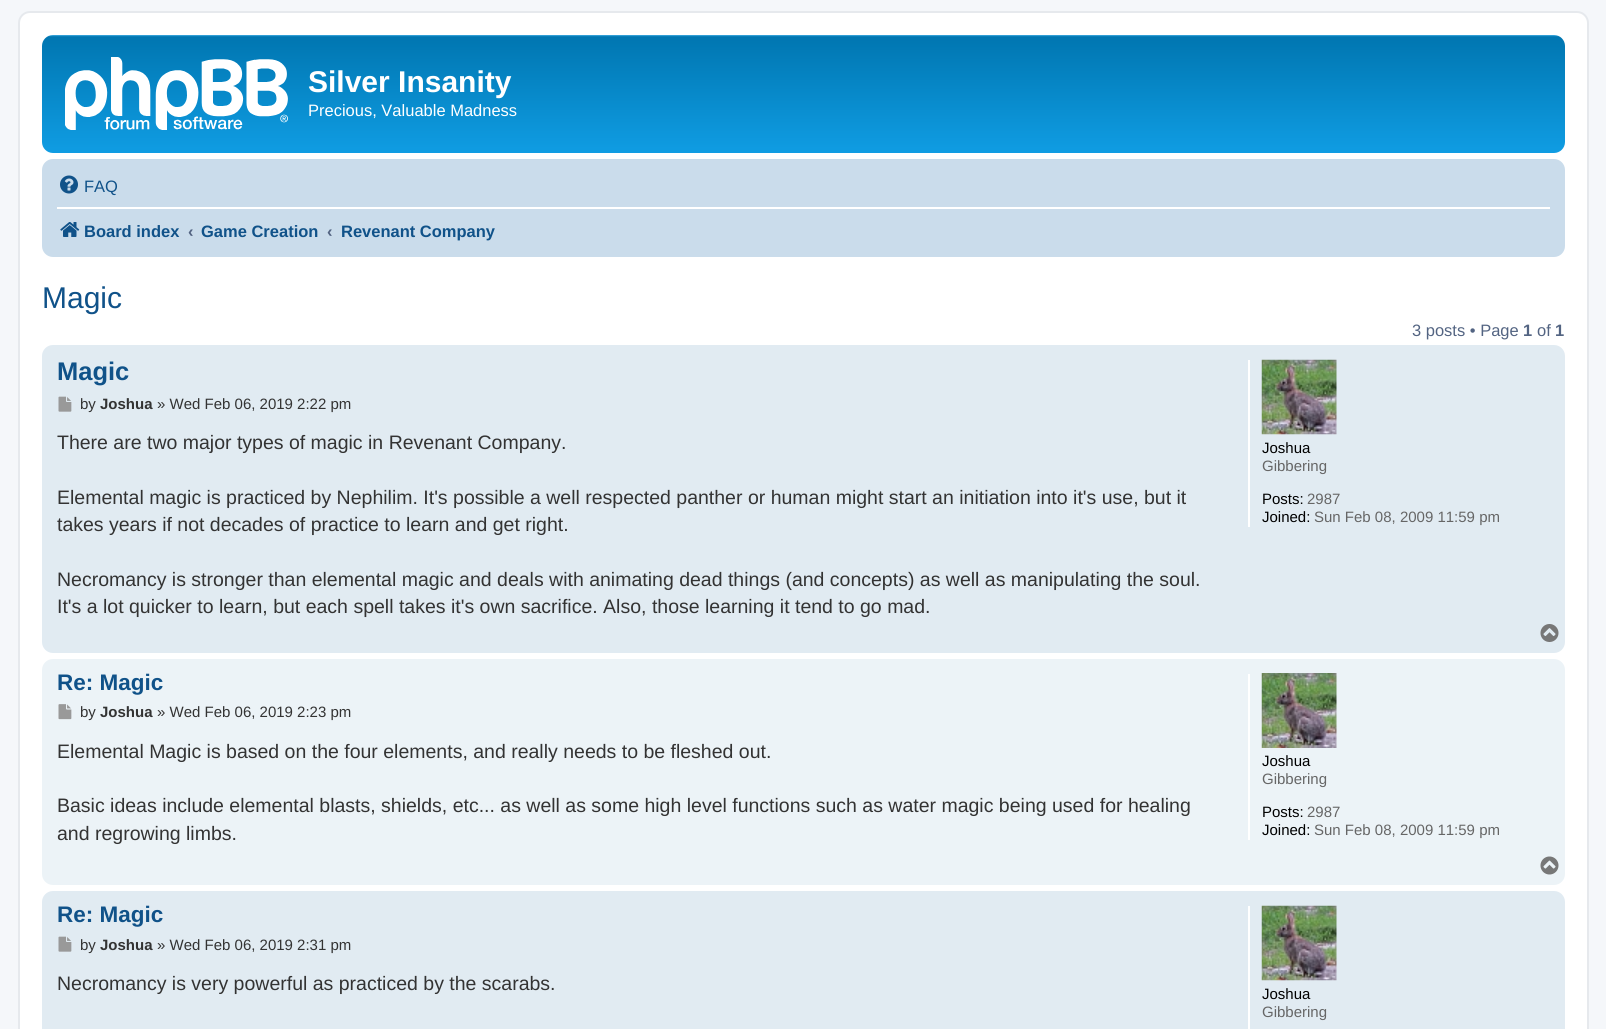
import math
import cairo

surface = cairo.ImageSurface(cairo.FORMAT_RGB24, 1606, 1029)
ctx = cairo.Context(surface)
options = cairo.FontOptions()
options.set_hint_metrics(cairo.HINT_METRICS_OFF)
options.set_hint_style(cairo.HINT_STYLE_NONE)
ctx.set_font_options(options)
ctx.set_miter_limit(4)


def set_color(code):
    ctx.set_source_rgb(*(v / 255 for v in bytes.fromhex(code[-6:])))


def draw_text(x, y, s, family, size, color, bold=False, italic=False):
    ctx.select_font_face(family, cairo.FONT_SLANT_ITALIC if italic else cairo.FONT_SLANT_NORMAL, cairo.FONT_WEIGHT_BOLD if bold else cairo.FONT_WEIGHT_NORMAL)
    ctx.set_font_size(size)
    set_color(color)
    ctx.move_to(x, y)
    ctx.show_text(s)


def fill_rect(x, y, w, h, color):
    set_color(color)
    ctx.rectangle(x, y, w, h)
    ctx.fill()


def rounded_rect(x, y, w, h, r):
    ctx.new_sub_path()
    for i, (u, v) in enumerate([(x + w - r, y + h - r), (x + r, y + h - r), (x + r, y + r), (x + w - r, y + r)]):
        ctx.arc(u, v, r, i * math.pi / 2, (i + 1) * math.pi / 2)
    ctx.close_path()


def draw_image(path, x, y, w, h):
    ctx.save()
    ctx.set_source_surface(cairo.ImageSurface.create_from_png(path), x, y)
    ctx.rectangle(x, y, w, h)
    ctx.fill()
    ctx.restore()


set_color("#f5f7fa")
ctx.paint()
set_color("#ffffff")
rounded_rect(19, 12, 1569, 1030, 11)
ctx.fill_preserve()
set_color("#e6e9ed")
ctx.stroke()
gradient = cairo.LinearGradient(803, 34, 803, 172)
gradient.add_color_stop_rgba(0, 0.416, 0.808, 1, 1)
gradient.add_color_stop_rgba(0.02, 0, 0.463, 0.694, 1)
gradient.add_color_stop_rgba(1, 0.071, 0.639, 0.922, 1)
ctx.set_source(gradient)
rounded_rect(42, 35, 1523, 118, 11)
ctx.fill()
draw_image("assets/img1.png", 65, 57, 223, 73)
draw_text(308, 92, "Silver Insanity", "Liberation Sans", 30, "#ffffff", bold=True)
draw_text(308, 116, "Precious, Valuable Madness", "Liberation Sans", 16.5, "#ffffff")
set_color("#cadceb")
rounded_rect(42, 159, 1523, 98, 11)
ctx.fill()
draw_image("assets/img2.png", 60, 175, 18, 19)
draw_text(84, 192, "FAQ", "Liberation Sans", 16.5, "#105289")
fill_rect(57, 207, 1493, 2, "#ffffff")
draw_image("assets/img3.png", 60, 222, 20, 15)
draw_text(84, 237, "Board index", "Liberation Sans", 16.5, "#105289", bold=True)
draw_text(188, 237, "‹", "Liberation Sans", 16.5, "#536482", bold=True)
draw_text(201, 237, "Game Creation", "Liberation Sans", 16.5, "#105289", bold=True)
draw_text(327, 237, "‹", "Liberation Sans", 16.5, "#536482", bold=True)
draw_text(341, 237, "Revenant Company", "Liberation Sans", 16.5, "#105289", bold=True)
draw_text(42, 308, "Magic", "Liberation Sans", 30, "#105289")
draw_text(1412, 336, "3 posts • Page", "Liberation Sans", 16.5, "#536482")
draw_text(1523, 336, "1", "Liberation Sans", 16.5, "#536482", bold=True)
draw_text(1537, 336, "of", "Liberation Sans", 16.5, "#536482")
draw_text(1555, 336, "1", "Liberation Sans", 16.5, "#536482", bold=True)
set_color("#e1ebf2")
rounded_rect(42, 345, 1523, 308, 11)
ctx.fill()
draw_text(57, 380, "Magic", "Liberation Sans", 25.5, "#105289", bold=True)
draw_image("assets/img4.png", 58, 396, 14, 16)
draw_text(80, 409, "by", "Liberation Sans", 15, "#333333")
draw_text(100, 409, "Joshua", "Liberation Sans", 15, "#333333", bold=True)
draw_text(157, 409, "» Wed Feb 06, 2019 2:22 pm", "Liberation Sans", 15, "#333333")
draw_text(57, 449, "There are two major types of magic in Revenant Company.", "Liberation Sans", 19.5, "#333333")
draw_text(57, 504, "Elemental magic is practiced by Nephilim. It's possible a well respected panther or human might start an initiation into it's use, but it", "Liberation Sans", 19.5, "#333333")
draw_text(57, 531, "takes years if not decades of practice to learn and get right.", "Liberation Sans", 19.5, "#333333")
draw_text(57, 586, "Necromancy is stronger than elemental magic and deals with animating dead things (and concepts) as well as manipulating the soul.", "Liberation Sans", 19.5, "#333333")
draw_text(57, 613, "It's a lot quicker to learn, but each spell takes it's own sacrifice. Also, those learning it tend to go mad.", "Liberation Sans", 19.5, "#333333")
fill_rect(1248, 360, 2, 167, "#ffffff")
draw_image("assets/img5.png", 1261, 359, 76, 76)
draw_text(1262, 453, "Joshua", "Liberation Sans", 15, "#000000")
draw_text(1262, 471, "Gibbering", "Liberation Sans", 15, "#666666")
draw_text(1262, 504, "Posts:", "Liberation Sans", 15, "#000000")
draw_text(1307, 504, "2987", "Liberation Sans", 15, "#666666")
draw_text(1262, 522, "Joined:", "Liberation Sans", 15, "#000000")
draw_text(1314, 522, "Sun Feb 08, 2009 11:59 pm", "Liberation Sans", 15, "#666666")
draw_image("assets/img6.png", 1540, 624, 19, 18)
set_color("#ecf3f7")
rounded_rect(42, 659, 1523, 226, 11)
ctx.fill()
draw_text(57, 690, "Re: Magic", "Liberation Sans", 22.5, "#105289", bold=True)
draw_image("assets/img7.png", 58, 704, 14, 16)
draw_text(80, 717, "by", "Liberation Sans", 15, "#333333")
draw_text(100, 717, "Joshua", "Liberation Sans", 15, "#333333", bold=True)
draw_text(157, 717, "» Wed Feb 06, 2019 2:23 pm", "Liberation Sans", 15, "#333333")
draw_text(57, 758, "Elemental Magic is based on the four elements, and really needs to be fleshed out.", "Liberation Sans", 19.5, "#333333")
draw_text(57, 812, "Basic ideas include elemental blasts, shields, etc... as well as some high level functions such as water magic being used for healing", "Liberation Sans", 19.5, "#333333")
draw_text(57, 840, "and regrowing limbs.", "Liberation Sans", 19.5, "#333333")
fill_rect(1248, 674, 2, 166, "#ffffff")
draw_image("assets/img8.png", 1261, 673, 76, 75)
draw_text(1262, 766, "Joshua", "Liberation Sans", 15, "#000000")
draw_text(1262, 784, "Gibbering", "Liberation Sans", 15, "#666666")
draw_text(1262, 817, "Posts:", "Liberation Sans", 15, "#000000")
draw_text(1307, 817, "2987", "Liberation Sans", 15, "#666666")
draw_text(1262, 835, "Joined:", "Liberation Sans", 15, "#000000")
draw_text(1314, 835, "Sun Feb 08, 2009 11:59 pm", "Liberation Sans", 15, "#666666")
draw_image("assets/img9.png", 1540, 856, 19, 19)
set_color("#e1ebf2")
rounded_rect(42, 891, 1523, 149, 11)
ctx.fill()
draw_text(57, 922, "Re: Magic", "Liberation Sans", 22.5, "#105289", bold=True)
draw_image("assets/img4.png", 58, 936, 14, 16)
draw_text(80, 950, "by", "Liberation Sans", 15, "#333333")
draw_text(100, 950, "Joshua", "Liberation Sans", 15, "#333333", bold=True)
draw_text(157, 950, "» Wed Feb 06, 2019 2:31 pm", "Liberation Sans", 15, "#333333")
draw_text(57, 990, "Necromancy is very powerful as practiced by the scarabs.", "Liberation Sans", 19.5, "#333333")
fill_rect(1248, 906, 2, 123, "#ffffff")
draw_image("assets/img5.png", 1261, 905, 76, 76)
draw_text(1262, 999, "Joshua", "Liberation Sans", 15, "#000000")
draw_text(1262, 1017, "Gibbering", "Liberation Sans", 15, "#666666")
surface.write_to_png("output.png")
